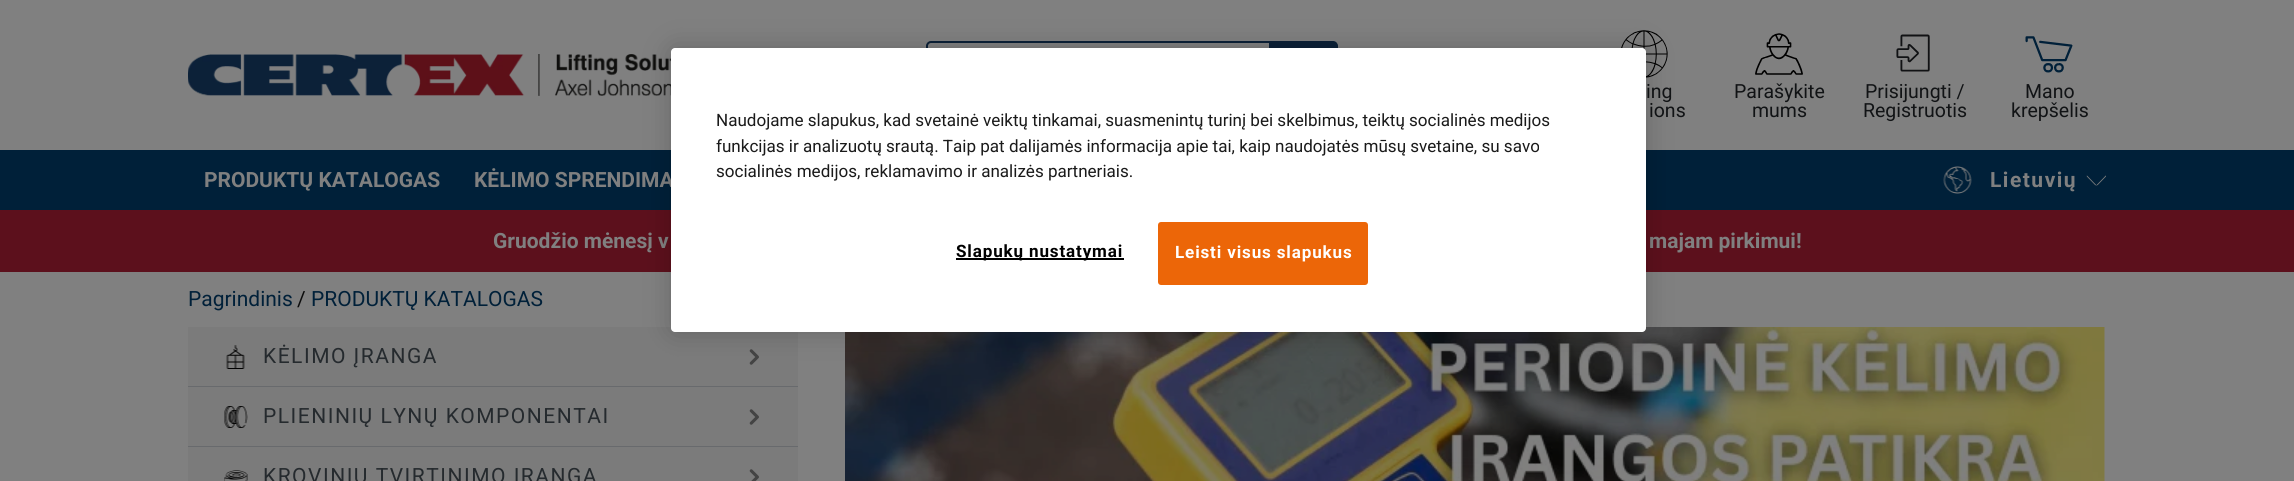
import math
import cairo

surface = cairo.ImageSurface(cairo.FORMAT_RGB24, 2294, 481)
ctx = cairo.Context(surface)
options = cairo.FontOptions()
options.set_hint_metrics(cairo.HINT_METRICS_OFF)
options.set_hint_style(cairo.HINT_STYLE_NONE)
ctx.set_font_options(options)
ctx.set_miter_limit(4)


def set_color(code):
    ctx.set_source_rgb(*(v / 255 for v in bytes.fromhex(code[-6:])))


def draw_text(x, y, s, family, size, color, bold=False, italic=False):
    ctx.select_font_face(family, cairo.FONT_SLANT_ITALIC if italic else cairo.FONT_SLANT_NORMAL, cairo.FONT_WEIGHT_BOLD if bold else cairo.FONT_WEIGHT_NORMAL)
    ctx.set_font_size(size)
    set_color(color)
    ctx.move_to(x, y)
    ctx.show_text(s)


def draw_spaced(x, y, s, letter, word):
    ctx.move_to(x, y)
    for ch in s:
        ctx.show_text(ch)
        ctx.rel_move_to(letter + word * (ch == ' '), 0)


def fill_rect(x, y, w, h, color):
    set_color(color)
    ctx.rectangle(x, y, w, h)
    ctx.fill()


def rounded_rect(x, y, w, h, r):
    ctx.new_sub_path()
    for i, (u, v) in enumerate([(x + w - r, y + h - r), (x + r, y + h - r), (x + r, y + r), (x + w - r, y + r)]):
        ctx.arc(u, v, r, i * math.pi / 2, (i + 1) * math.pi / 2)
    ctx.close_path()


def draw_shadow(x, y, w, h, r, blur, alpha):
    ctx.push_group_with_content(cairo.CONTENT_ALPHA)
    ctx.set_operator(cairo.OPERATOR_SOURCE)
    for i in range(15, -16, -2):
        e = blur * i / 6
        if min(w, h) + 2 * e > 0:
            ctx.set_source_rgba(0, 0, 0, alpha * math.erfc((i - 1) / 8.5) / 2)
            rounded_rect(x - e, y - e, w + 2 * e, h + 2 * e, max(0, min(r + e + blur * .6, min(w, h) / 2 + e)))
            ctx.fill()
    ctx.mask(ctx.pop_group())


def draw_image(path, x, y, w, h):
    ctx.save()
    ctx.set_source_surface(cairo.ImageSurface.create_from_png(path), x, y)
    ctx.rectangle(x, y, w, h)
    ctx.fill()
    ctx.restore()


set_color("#808080")
ctx.paint()
draw_image("assets/img1.png", 188, 54, 483, 42)
rounded_rect(927, 42, 410, 67, 4)
set_color("#0b2037")
ctx.stroke()
ctx.new_path()
ctx.move_to(1269, 41)
ctx.line_to(1330, 41)
ctx.curve_to(1334.5, 41, 1338, 44.5, 1338, 49)
ctx.line_to(1338, 102)
ctx.curve_to(1338, 106.5, 1334.5, 110, 1330, 110)
ctx.line_to(1269, 110)
ctx.close_path()
ctx.fill()
draw_image("assets/img2.png", 1621, 30, 47, 48)
draw_text(1646, 98, "ing", "Roboto", 19.5, "#111315")
draw_text(1649, 117, "ions", "Roboto", 19.5, "#111315")
draw_image("assets/img3.png", 1755, 33, 48, 42)
draw_text(1734, 98, "Parašykite", "Roboto", 19.5, "#111315")
draw_text(1752, 117, "mums", "Roboto", 19.5, "#111315")
draw_image("assets/img4.png", 1896, 34, 34, 38)
draw_text(1865, 98, "Prisijungti /", "Roboto", 19.5, "#111315")
draw_text(1863, 117, "Registruotis", "Roboto", 19.5, "#111315")
draw_image("assets/img5.png", 2025, 36, 48, 37)
draw_text(2025, 98, "Mano", "Roboto", 19.5, "#111315")
draw_text(2011, 117, "krepšelis", "Roboto", 19.5, "#111315")
fill_rect(0, 150, 2294, 60, "#002039")
draw_text(204, 187, "PRODUKTŲ KATALOGAS", "Roboto", 21, "#808080", bold=True)
draw_text(474, 187, "KĖLIMO SPRENDIMA", "Roboto", 21, "#808080", bold=True)
draw_image("assets/img6.png", 1943, 166, 29, 28)
draw_spaced(1990, 187, "Lietuvių", 1.5, 0)
draw_image("assets/img7.png", 2086, 175, 20, 11)
fill_rect(0, 210, 2294, 62, "#5c101c")
draw_text(493, 248, "Gruodžio mėnesį v", "Roboto", 21, "#808080", bold=True)
draw_text(1649, 248, "majam pirkimui!", "Roboto", 21, "#808080", bold=True)
fill_rect(188, 327, 610, 59, "#7b7b7b")
draw_image("assets/img9.png", 749, 349, 10, 16)
draw_image("assets/img13.png", 845, 327, 1260, 154)
set_color("#000000")
draw_shadow(671, 48, 975, 284, 4, 13.5, 0.2)
set_color("#ffffff")
rounded_rect(671, 48, 975, 284, 4)
ctx.fill()
draw_text(716, 126, "Naudojame slapukus, kad svetainė veiktų tinkamai, suasmenintų turinį bei skelbimus, teiktų socialinės medijos", "Roboto", 17.05, "#1a1a1a")
draw_text(716, 152, "funkcijas ir analizuotų srautą. Taip pat dalijamės informacija apie tai, kaip naudojatės mūsų svetaine, su savo", "Roboto", 17.05, "#1a1a1a")
draw_text(716, 177, "socialinės medijos, reklamavimo ir analizės partneriais.", "Roboto", 17.05, "#1a1a1a")
fill_rect(956, 258, 168, 2, "#000000")
ctx.select_font_face("Roboto", cairo.FONT_SLANT_NORMAL, cairo.FONT_WEIGHT_BOLD)
draw_spaced(956, 257, "Slapukų nustatymai", 0.85, 0)
set_color("#ec6608")
rounded_rect(1159, 223, 208, 61, 2)
ctx.fill_preserve()
ctx.stroke()
set_color("#ffffff")
draw_spaced(1175, 258, "Leisti visus slapukus", 0.85, 0)
draw_text(188, 306, "Pagrindinis", "Roboto", 21, "#002039")
draw_text(297, 306, "/", "Roboto", 21, "#0d0d0d")
draw_text(311, 306, "PRODUKTŲ KATALOGAS", "Roboto", 21, "#002039")
fill_rect(188, 386, 610, 1, "#686a6d")
draw_image("assets/img8.png", 226, 345, 19, 24)
set_color("#252a2e")
draw_spaced(263, 363, "KĖLIMO ĮRANGA", 1.5, 0)
fill_rect(188, 387, 610, 59, "#7b7b7b")
fill_rect(188, 446, 610, 1, "#686a6d")
draw_image("assets/img10.png", 224, 406, 24, 22)
set_color("#252a2e")
draw_spaced(263, 423, "PLIENINIŲ LYNŲ KOMPONENTAI", 1.5, 0)
draw_image("assets/img9.png", 749, 409, 10, 16)
fill_rect(188, 447, 610, 34, "#7b7b7b")
draw_image("assets/img11.png", 224, 470, 24, 11)
set_color("#252a2e")
draw_spaced(263, 483, "KROVINIŲ TVIRTINIMO ĮRANGA", 1.5, 0)
draw_image("assets/img12.png", 749, 469, 10, 12)
surface.write_to_png("output.png")
